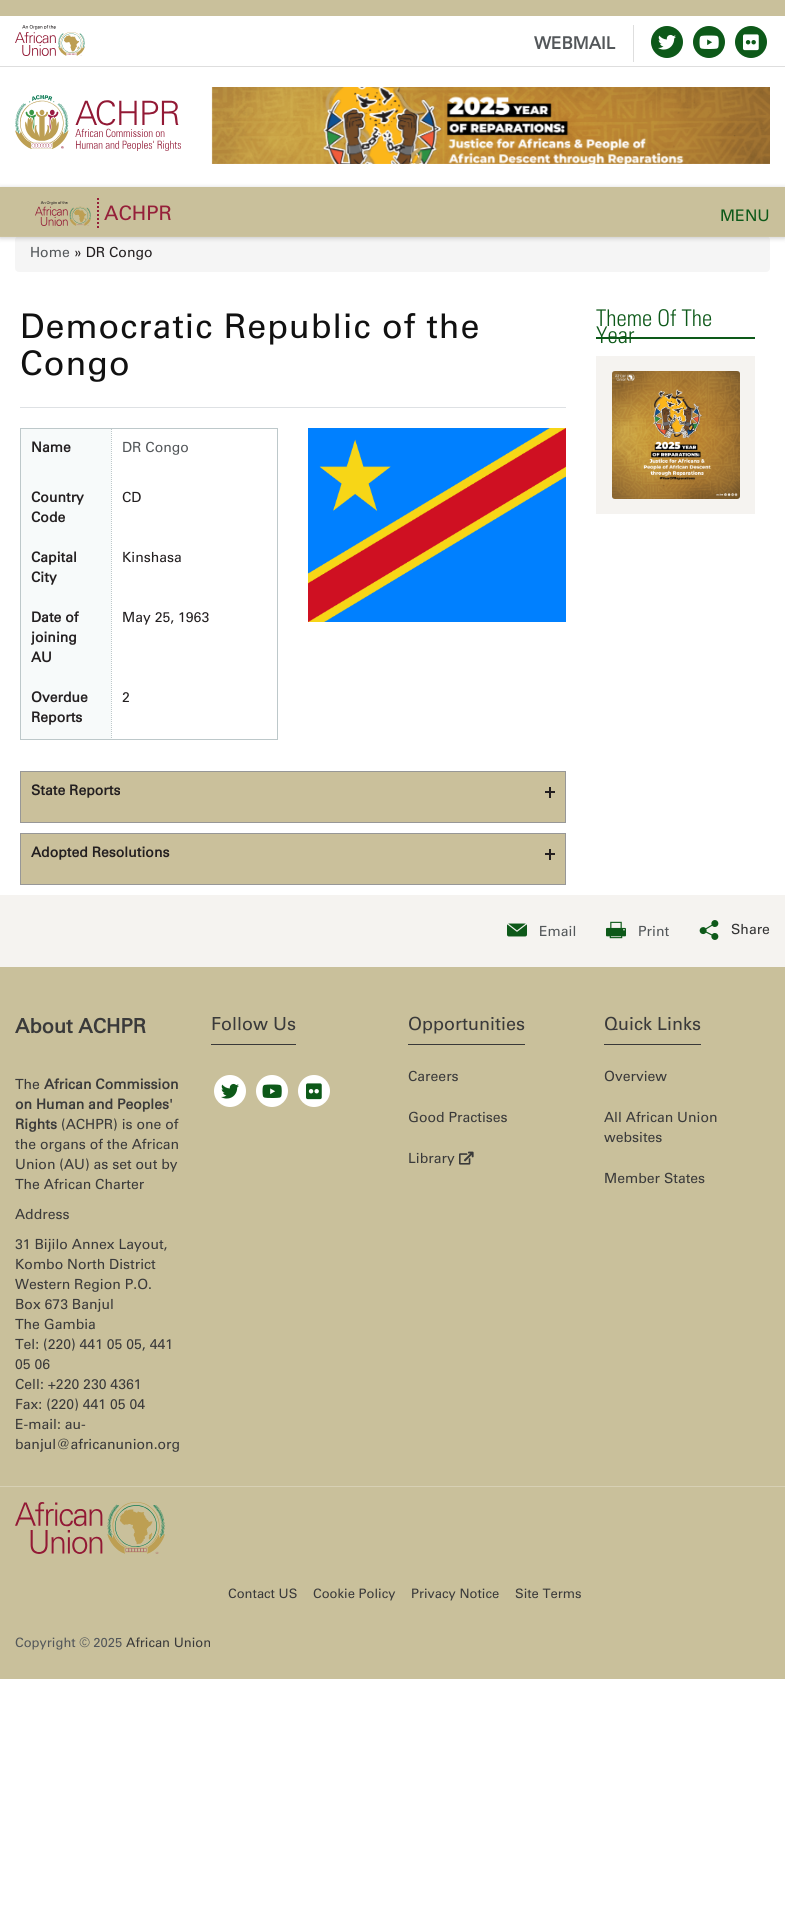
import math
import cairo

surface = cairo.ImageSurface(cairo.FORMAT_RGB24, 785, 1926)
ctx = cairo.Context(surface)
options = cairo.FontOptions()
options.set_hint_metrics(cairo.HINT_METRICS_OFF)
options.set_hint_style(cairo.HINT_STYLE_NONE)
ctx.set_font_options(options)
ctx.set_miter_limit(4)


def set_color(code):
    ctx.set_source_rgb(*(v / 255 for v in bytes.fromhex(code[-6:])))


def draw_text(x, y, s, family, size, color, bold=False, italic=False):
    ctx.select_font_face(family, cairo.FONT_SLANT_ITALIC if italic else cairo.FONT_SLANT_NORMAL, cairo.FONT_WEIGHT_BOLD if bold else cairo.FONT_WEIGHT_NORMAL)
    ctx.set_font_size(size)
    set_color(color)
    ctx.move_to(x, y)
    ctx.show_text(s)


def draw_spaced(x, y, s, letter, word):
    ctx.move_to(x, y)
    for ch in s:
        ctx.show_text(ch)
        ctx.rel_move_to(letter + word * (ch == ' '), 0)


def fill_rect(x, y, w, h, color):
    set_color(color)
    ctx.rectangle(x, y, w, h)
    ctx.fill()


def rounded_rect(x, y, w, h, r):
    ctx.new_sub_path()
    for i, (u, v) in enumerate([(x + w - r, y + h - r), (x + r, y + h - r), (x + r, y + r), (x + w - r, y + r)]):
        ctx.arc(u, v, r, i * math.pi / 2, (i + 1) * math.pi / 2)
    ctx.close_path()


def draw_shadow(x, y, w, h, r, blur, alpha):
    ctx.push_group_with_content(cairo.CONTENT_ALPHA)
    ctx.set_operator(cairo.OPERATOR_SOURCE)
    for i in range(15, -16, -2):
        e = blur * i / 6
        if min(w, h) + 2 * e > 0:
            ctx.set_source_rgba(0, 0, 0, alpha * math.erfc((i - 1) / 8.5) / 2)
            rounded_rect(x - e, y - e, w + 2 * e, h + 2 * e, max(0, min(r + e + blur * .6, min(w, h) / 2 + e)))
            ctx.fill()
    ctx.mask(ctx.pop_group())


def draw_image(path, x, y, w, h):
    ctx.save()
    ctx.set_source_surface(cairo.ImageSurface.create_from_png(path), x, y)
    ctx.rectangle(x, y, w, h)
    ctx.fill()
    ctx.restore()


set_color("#ffffff")
ctx.paint()
fill_rect(0, 0, 785, 16, "#c9c09b")
fill_rect(0, 66, 785, 1, "#dedede")
draw_image("assets/img1.png", 15, 25, 70, 31)
fill_rect(633, 25, 1, 37, "#dedede")
draw_text(534, 49, "WEBMAIL", "Univers", 17, "#53575a", bold=True)
set_color("#0d5919")
ctx.new_path()
ctx.arc(667, 42, 15, 0, 2 * math.pi)
ctx.fill_preserve()
ctx.stroke()
draw_image("assets/img2.png", 658, 34, 18, 16)
ctx.arc(709, 42, 15, 0, 2 * math.pi)
ctx.fill_preserve()
ctx.stroke()
draw_image("assets/img3.png", 699, 35, 20, 14)
ctx.arc(751, 42, 15, 0, 2 * math.pi)
ctx.fill_preserve()
ctx.stroke()
draw_image("assets/img4.png", 743, 34, 16, 17)
draw_image("assets/img5.png", 15, 95, 166, 56)
draw_image("assets/img6.png", 211, 87, 559, 77)
set_color("#f5f5f5")
rounded_rect(15, 236, 755, 36, 4)
ctx.fill()
set_color("#000000")
draw_shadow(0, 188, 785, 50, 0, 2.5, 0.2)
fill_rect(0, 187, 785, 49, "#c9c09b")
fill_rect(0, 236, 785, 1, "#ccc3a0")
draw_image("assets/img7.png", 35, 201, 56, 25)
ctx.new_path()
ctx.move_to(98, 198)
ctx.line_to(98, 228)
set_color("#951f39")
ctx.set_dash([2, 2])
ctx.stroke()
draw_text(104, 220, "ACHPR", "Univers", 20, "#951f39")
draw_text(720, 221, "MENU", "Univers", 16, "#0d5919")
draw_text(30, 257, "Home", "Univers", 14, "#53575a")
draw_text(74, 257, "» DR Congo", "Univers", 14, "#231f20")
ctx.set_font_size(34)
set_color("#111111")
draw_spaced(20, 338, "Democratic Republic of the", 1, 0)
draw_spaced(20, 375, "Congo", 1, 0)
fill_rect(20, 407, 546, 1, "#dee1e4")
fill_rect(21, 429, 90, 310, "#f7fafa")
ctx.rectangle(20.5, 428.5, 257, 311)
set_color("#bdc8ca")
ctx.set_line_width(1)
ctx.set_dash([])
ctx.stroke()
draw_text(31, 452, "Name", "Univers", 14, "#231f20", bold=True)
ctx.new_path()
ctx.move_to(111.5, 429)
ctx.line_to(111.5, 479)
set_color("#bdc8ca")
ctx.set_dash([1, 1])
ctx.stroke()
draw_text(122, 452, "DR Congo", "Univers", 14, "#53575a")
draw_text(31, 502, "Country", "Univers", 14, "#231f20", bold=True)
draw_text(31, 522, "Code", "Univers", 14, "#231f20", bold=True)
ctx.new_path()
ctx.move_to(111.5, 479)
ctx.line_to(111.5, 539)
set_color("#bdc8ca")
ctx.stroke()
draw_text(122, 502, "CD", "Univers", 14, "#231f20")
draw_text(31, 562, "Capital", "Univers", 14, "#231f20", bold=True)
draw_text(31, 582, "City", "Univers", 14, "#231f20", bold=True)
ctx.new_path()
ctx.move_to(111.5, 539)
ctx.line_to(111.5, 599)
set_color("#bdc8ca")
ctx.stroke()
draw_text(122, 562, "Kinshasa", "Univers", 14, "#231f20")
draw_text(31, 622, "Date of", "Univers", 14, "#231f20", bold=True)
draw_text(31, 642, "joining", "Univers", 14, "#231f20", bold=True)
draw_text(31, 662, "AU", "Univers", 14, "#231f20", bold=True)
ctx.new_path()
ctx.move_to(111.5, 599)
ctx.line_to(111.5, 679)
set_color("#bdc8ca")
ctx.stroke()
draw_text(122, 622, "May 25, 1963", "Univers", 14, "#231f20")
draw_text(31, 702, "Overdue", "Univers", 14, "#231f20", bold=True)
draw_text(31, 722, "Reports", "Univers", 14, "#231f20", bold=True)
ctx.new_path()
ctx.move_to(111.5, 679)
ctx.line_to(111.5, 739)
set_color("#bdc8ca")
ctx.stroke()
draw_text(122, 702, "2", "Univers", 14, "#231f20")
draw_image("assets/img8.png", 308, 428, 258, 194)
set_color("#cac09b")
ctx.rectangle(20.5, 771.5, 545, 51)
ctx.fill_preserve()
set_color("#979797")
ctx.set_dash([])
ctx.stroke()
draw_text(31, 795, "State Reports", "Univers", 14, "#231f20", bold=True)
fill_rect(545, 791, 10, 2, "#231f20")
fill_rect(549, 787, 2, 11, "#231f20")
set_color("#cac09b")
ctx.rectangle(20.5, 833.5, 545, 51)
ctx.fill_preserve()
set_color("#979797")
ctx.stroke()
draw_text(31, 857, "Adopted Resolutions", "Univers", 14, "#231f20", bold=True)
fill_rect(545, 853, 10, 2, "#231f20")
fill_rect(549, 849, 2, 11, "#231f20")
fill_rect(596, 337, 159, 2, "#0d5919")
draw_text(596, 326, "Theme Of The", "Univers Light", 23, "#0d5919")
draw_text(596, 343, "Year", "Univers Light", 23, "#0d5919")
fill_rect(596, 356, 159, 158, "#f5f3f0")
draw_image("assets/img9.png", 612, 371, 128, 128)
fill_rect(0, 967, 785, 519, "#c9c09b")
fill_rect(0, 895, 785, 72, "#f5f3f0")
draw_image("assets/img10.png", 507, 923, 20, 14)
draw_text(539, 936, "Email", "Univers", 14, "#53575a")
draw_image("assets/img11.png", 606, 921, 20, 18)
draw_text(638, 936, "Print", "Univers", 14, "#53575a")
draw_image("assets/img12.png", 699, 920, 20, 20)
draw_text(731, 934, "Share", "Univers", 14, "#333333")
draw_text(15, 1033, "About ACHPR", "Univers", 20, "#3a3a3a", bold=True)
draw_text(15, 1089, "The", "Univers", 14, "#3a3a3a")
draw_text(44, 1089, "African Commission", "Univers", 14, "#3a3a3a", bold=True)
draw_text(15, 1109, "on Human and Peoples'", "Univers", 14, "#3a3a3a", bold=True)
draw_text(15, 1129, "Rights", "Univers", 14, "#3a3a3a", bold=True)
draw_text(61, 1129, "(ACHPR) is one of", "Univers", 14, "#3a3a3a")
draw_text(15, 1149, "the organs of the African", "Univers", 14, "#3a3a3a")
draw_text(15, 1169, "Union (AU) as set out by", "Univers", 14, "#3a3a3a")
draw_text(15, 1189, "The African Charter", "Univers", 14, "#3a3a3a")
draw_text(15, 1219, "Address", "Univers", 14, "#3a3a3a")
draw_text(15, 1249, "31 Bijilo Annex Layout,", "Univers", 14, "#3a3a3a")
draw_text(15, 1269, "Kombo North District", "Univers", 14, "#3a3a3a")
draw_text(15, 1289, "Western Region P.O.", "Univers", 14, "#3a3a3a")
draw_text(15, 1309, "Box 673 Banjul", "Univers", 14, "#3a3a3a")
draw_text(15, 1329, "The Gambia", "Univers", 14, "#3a3a3a")
draw_text(15, 1349, "Tel: (220) 441 05 05, 441", "Univers", 14, "#3a3a3a")
draw_text(15, 1369, "05 06", "Univers", 14, "#3a3a3a")
draw_text(15, 1389, "Cell: +220 230 4361", "Univers", 14, "#3a3a3a")
draw_text(15, 1409, "Fax: (220) 441 05 04", "Univers", 14, "#3a3a3a")
draw_text(15, 1429, "E-mail: au-", "Univers", 14, "#3a3a3a")
draw_text(15, 1449, "banjul@africanunion.org", "Univers", 14, "#3a3a3a")
fill_rect(211, 1044, 85, 1, "#393939")
draw_text(211, 1030, "Follow Us", "Univers", 18, "#3a3a3a")
set_color("#ffffff")
ctx.new_path()
ctx.arc(230, 1091, 16, 0, 2 * math.pi)
ctx.fill()
draw_image("assets/img13.png", 221, 1083, 18, 16)
ctx.arc(272, 1091, 16, 0, 2 * math.pi)
ctx.fill()
draw_image("assets/img14.png", 262, 1084, 20, 14)
ctx.arc(314, 1091, 16, 0, 2 * math.pi)
ctx.fill()
draw_image("assets/img15.png", 306, 1083, 16, 17)
fill_rect(408, 1044, 117, 1, "#393939")
draw_text(408, 1030, "Opportunities", "Univers", 18, "#3a3a3a")
draw_text(408, 1081, "Careers", "Univers", 14, "#3a3a3a")
draw_text(408, 1122, "Good Practises", "Univers", 14, "#3a3a3a")
draw_text(408, 1163, "Library", "Univers", 14, "#3a3a3a")
draw_image("assets/img16.png", 459, 1151, 15, 14)
fill_rect(604, 1044, 97, 1, "#393939")
draw_text(604, 1030, "Quick Links", "Univers", 18, "#3a3a3a")
draw_text(604, 1081, "Overview", "Univers", 14, "#3a3a3a")
draw_text(604, 1122, "All African Union", "Univers", 14, "#3a3a3a")
draw_text(604, 1142, "websites", "Univers", 14, "#3a3a3a")
draw_text(604, 1183, "Member States", "Univers", 14, "#3a3a3a")
fill_rect(0, 1487, 785, 192, "#c9c09b")
fill_rect(0, 1486, 785, 1, "#d7d0b5")
draw_image("assets/img17.png", 15, 1502, 150, 52)
draw_text(228, 1598, "Contact US", "Univers", 13, "#3a3a3a")
draw_text(313, 1598, "Cookie Policy", "Univers", 13, "#3a3a3a")
draw_text(411, 1598, "Privacy Notice", "Univers", 13, "#3a3a3a")
draw_text(515, 1598, "Site Terms", "Univers", 13, "#3a3a3a")
draw_text(15, 1647, "Copyright © 2025", "Univers", 13, "#53575a")
draw_text(126, 1647, "African Union", "Univers", 13, "#3a3a3a")
surface.write_to_png("output.png")
